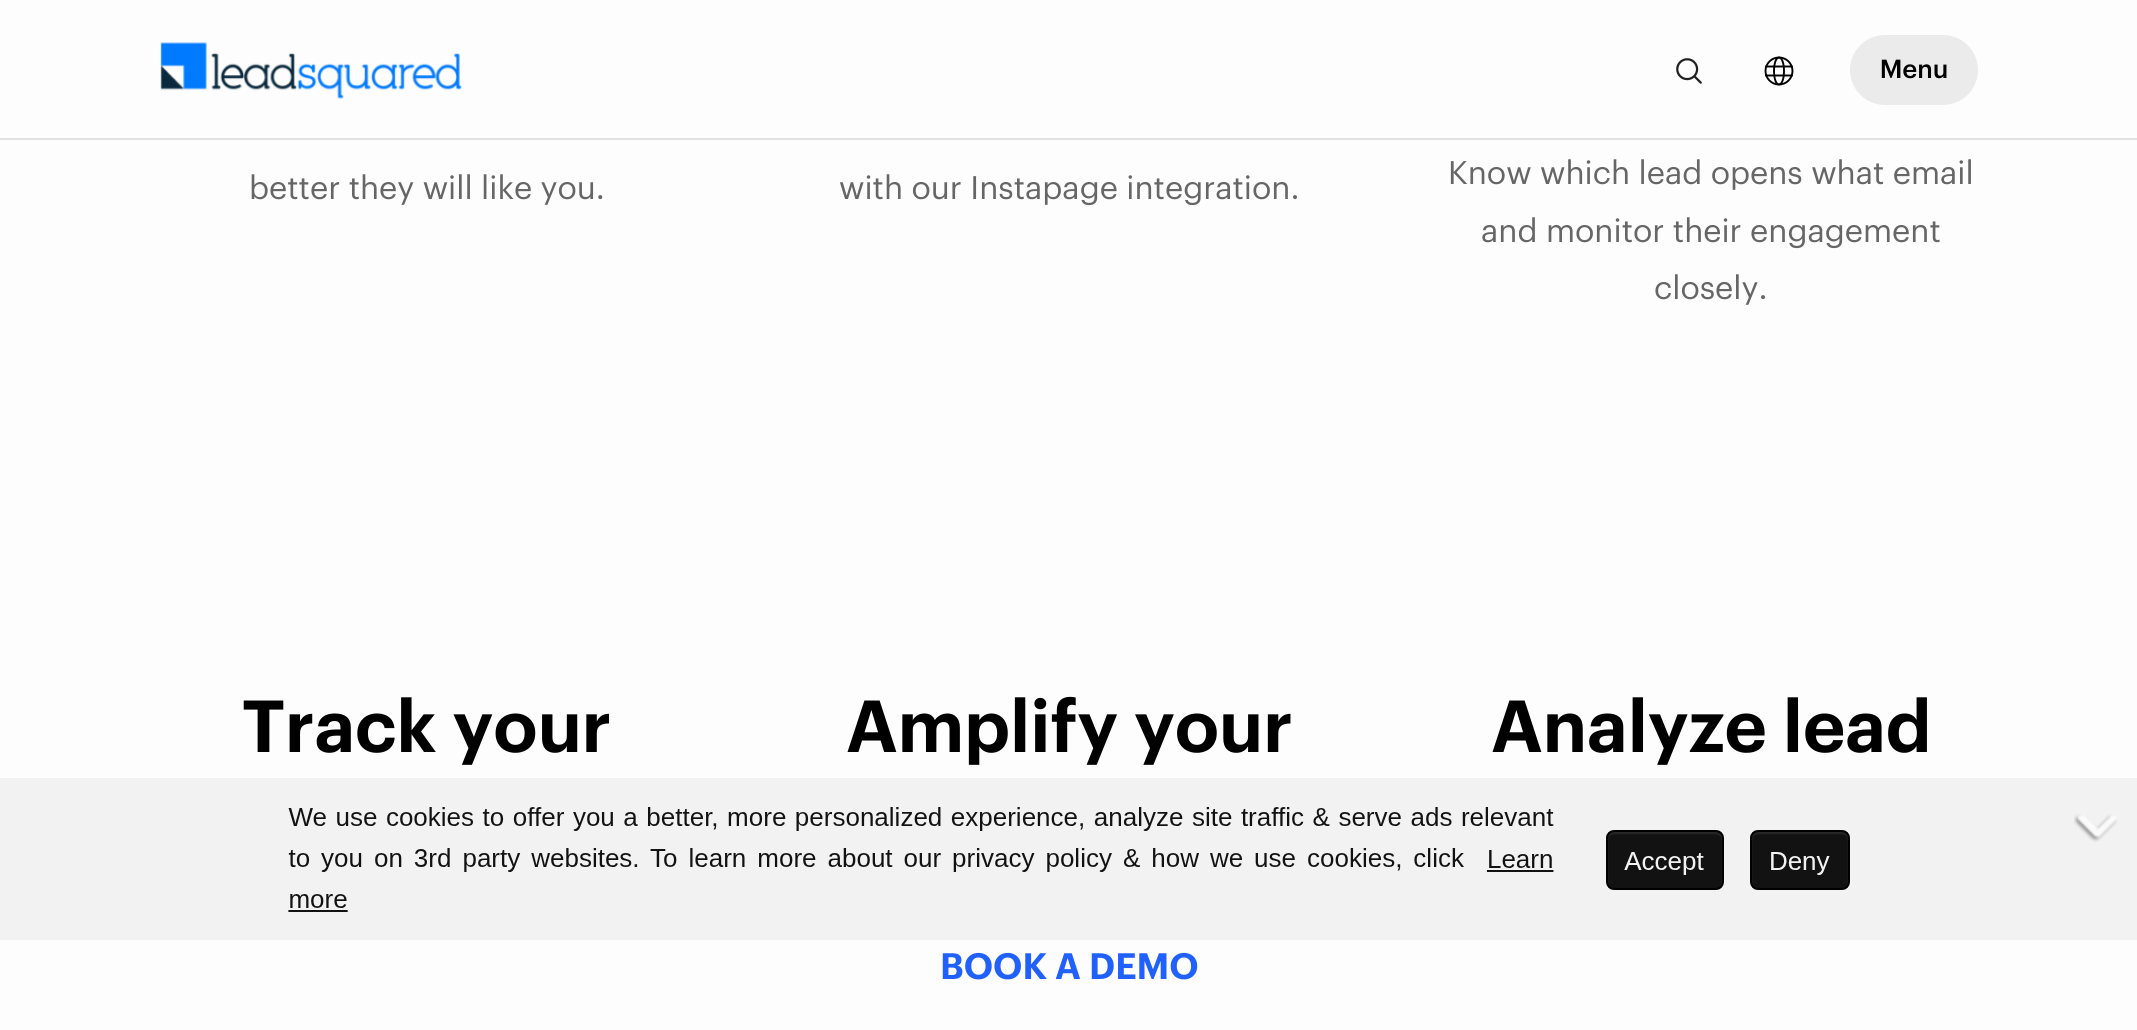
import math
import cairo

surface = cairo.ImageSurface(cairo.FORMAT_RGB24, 2137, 1030)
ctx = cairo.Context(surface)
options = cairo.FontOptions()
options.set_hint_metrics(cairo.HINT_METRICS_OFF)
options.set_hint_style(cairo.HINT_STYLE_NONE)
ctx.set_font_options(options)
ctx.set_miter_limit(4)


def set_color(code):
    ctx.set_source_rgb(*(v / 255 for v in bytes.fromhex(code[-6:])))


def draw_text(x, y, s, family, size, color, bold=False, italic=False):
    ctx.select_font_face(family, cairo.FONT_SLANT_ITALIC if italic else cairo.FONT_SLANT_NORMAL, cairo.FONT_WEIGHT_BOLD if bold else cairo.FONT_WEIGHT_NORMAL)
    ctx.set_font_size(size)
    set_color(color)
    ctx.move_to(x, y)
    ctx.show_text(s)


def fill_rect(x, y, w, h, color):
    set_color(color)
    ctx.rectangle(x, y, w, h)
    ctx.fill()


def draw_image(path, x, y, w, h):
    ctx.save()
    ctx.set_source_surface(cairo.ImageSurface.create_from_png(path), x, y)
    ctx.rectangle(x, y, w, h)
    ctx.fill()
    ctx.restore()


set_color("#fdfdfd")
ctx.paint()
fill_rect(0, 138, 2137, 2, "#e1e1e1")
draw_image("assets/img1.png", 160, 42, 302, 57)
draw_image("assets/img2.png", 1676, 58, 26, 26)
ctx.arc(1779, 71, 13.5, 0, 2 * math.pi)
set_color("#000000")
ctx.set_line_width(1.9)
ctx.stroke()
ctx.new_path()
ctx.move_to(1779, 57.5)
ctx.curve_to(1782, 57.5, 1784, 63.5, 1784, 71)
ctx.curve_to(1784, 78.5, 1782, 84.5, 1779, 84.5)
ctx.curve_to(1776, 84.5, 1774, 78.5, 1774, 71)
ctx.curve_to(1774, 63.5, 1776, 57.5, 1779, 57.5)
ctx.close_path()
ctx.stroke()
ctx.new_path()
ctx.move_to(1766, 66.5)
ctx.line_to(1792, 66.5)
ctx.move_to(1766, 75.5)
ctx.line_to(1792, 75.5)
ctx.set_line_cap(cairo.LINE_CAP_ROUND)
ctx.set_line_join(cairo.LINE_JOIN_ROUND)
ctx.stroke()
draw_image("assets/img3.png", 1850, 35, 128, 70)
draw_text(249, 199, "better they will like you.", "Graphik", 32, "#666666")
draw_text(839, 199, "with our Instapage integration.", "Graphik", 32, "#666666")
draw_text(1448, 184, "Know which lead opens what email", "Graphik", 32, "#666666")
draw_text(1481, 242, "and monitor their engagement", "Graphik", 32, "#666666")
draw_text(1654, 299, "closely.", "Graphik", 32, "#666666")
draw_text(242, 752, "Track your", "Graphik SemiBold", 72, "#000000")
draw_text(846, 752, "Amplify your", "Graphik SemiBold", 72, "#000000")
draw_text(1491, 752, "Analyze lead", "Graphik SemiBold", 72, "#000000")
draw_image("assets/img4.png", 0, 778, 2137, 162)
draw_text(940, 979, "BOOK A DEMO", "Graphik SemiBold", 36, "#2060fd")
surface.write_to_png("output.png")
